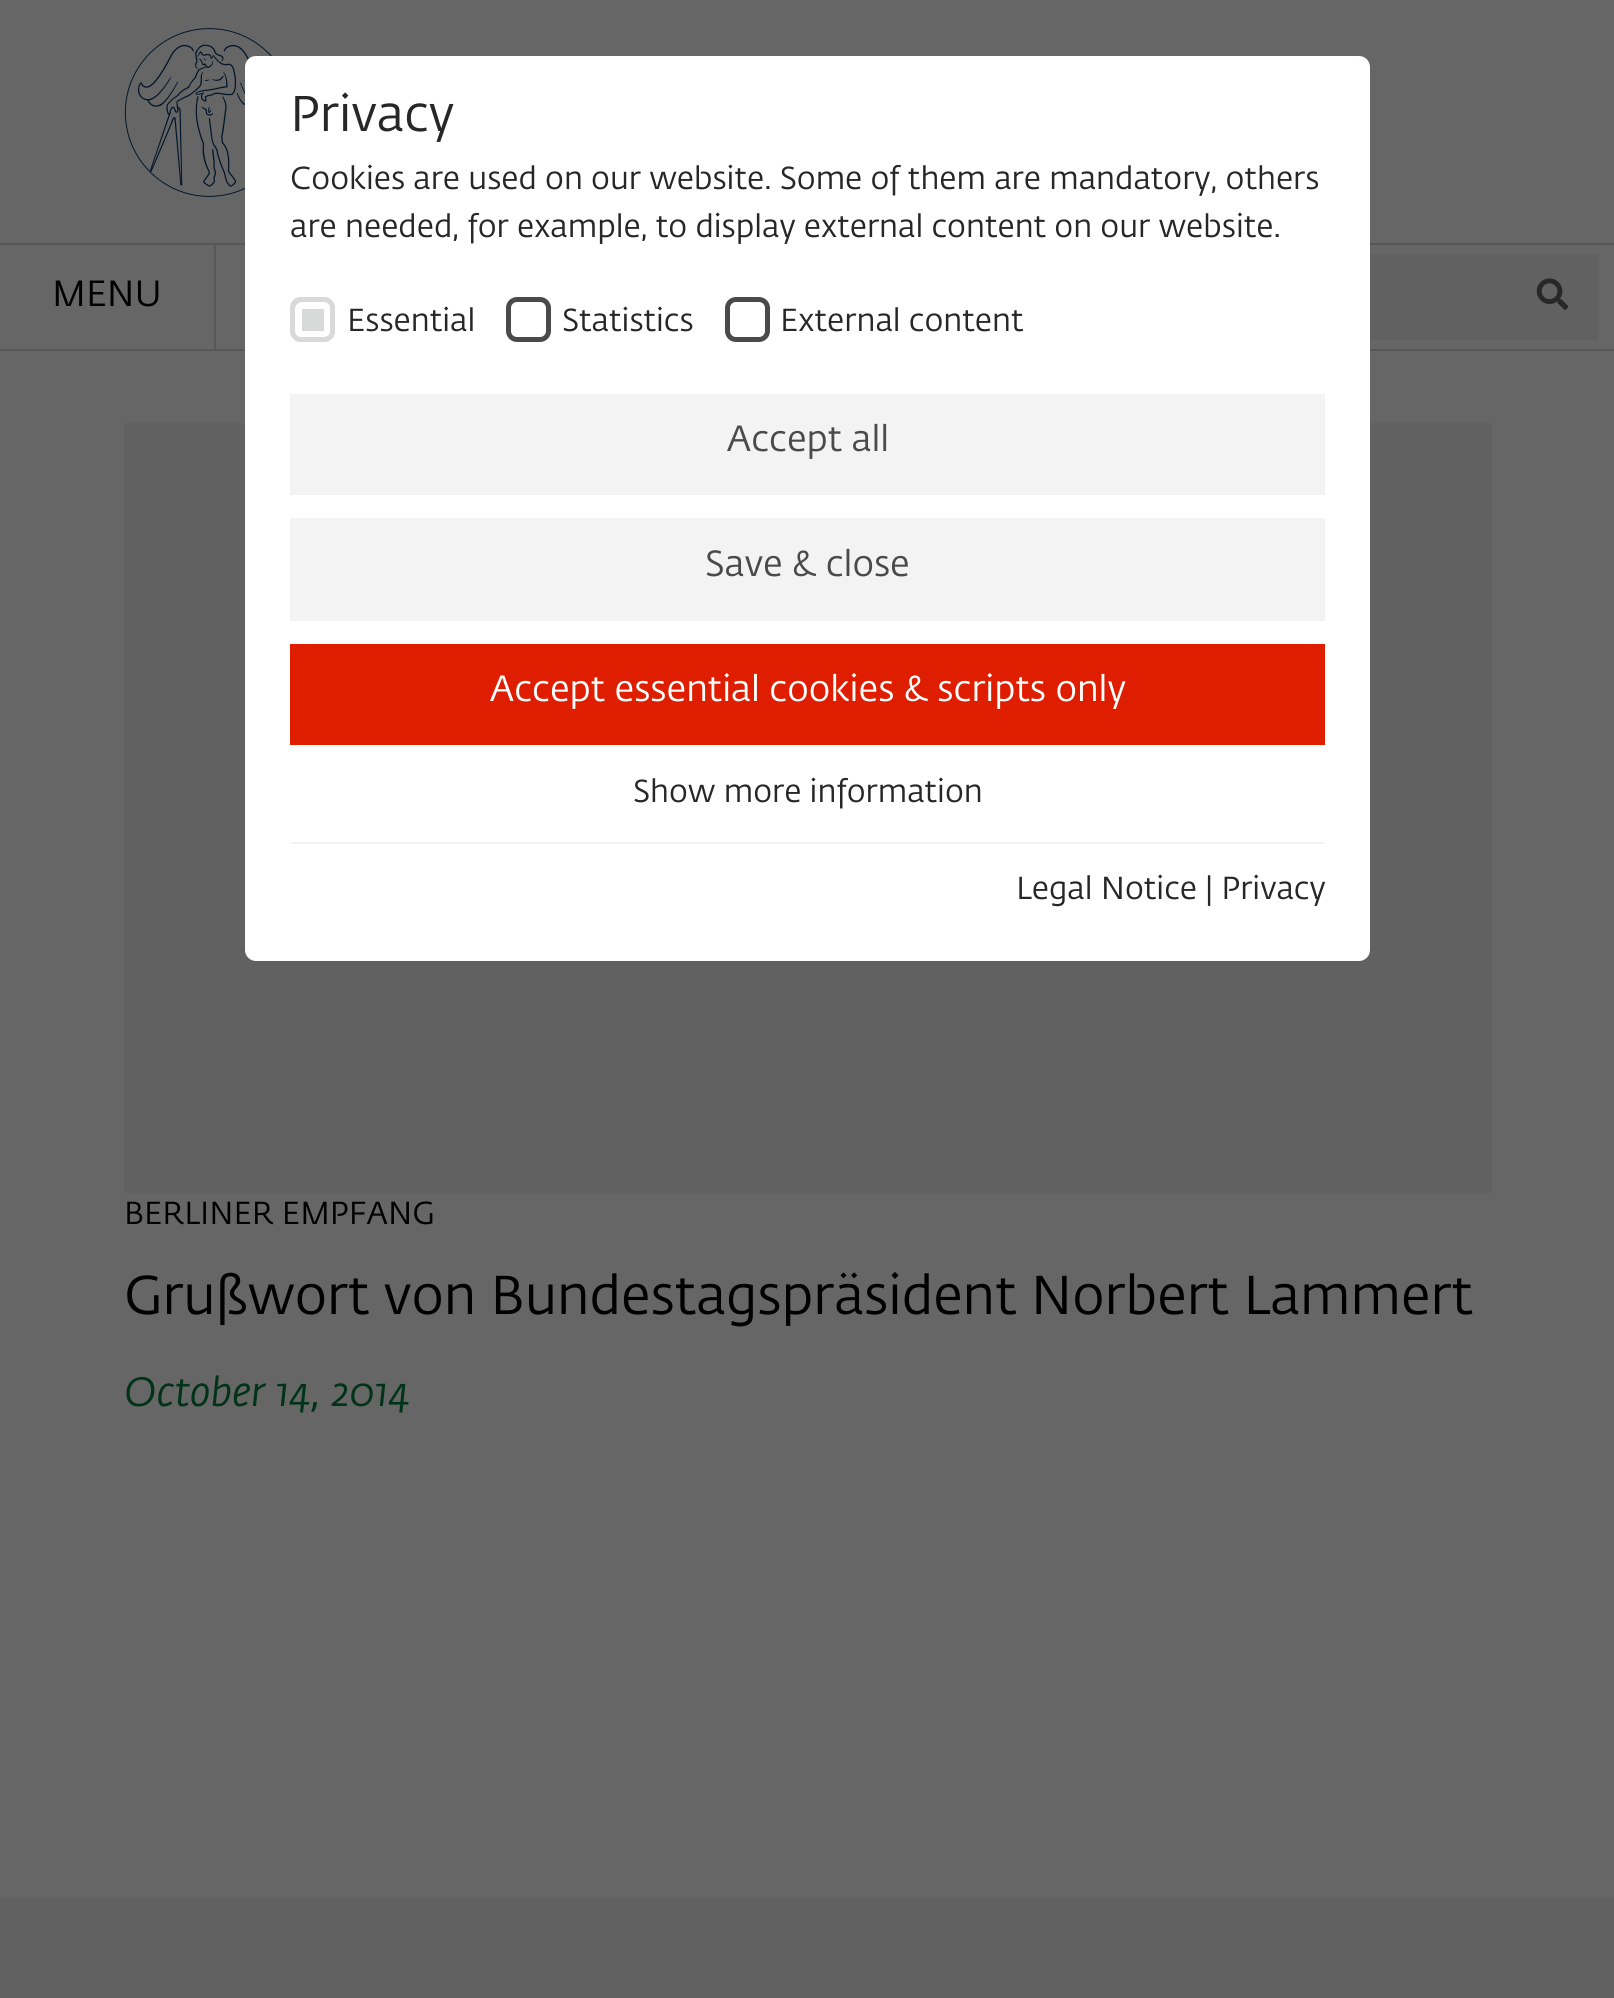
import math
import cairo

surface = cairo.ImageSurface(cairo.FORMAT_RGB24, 1614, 1998)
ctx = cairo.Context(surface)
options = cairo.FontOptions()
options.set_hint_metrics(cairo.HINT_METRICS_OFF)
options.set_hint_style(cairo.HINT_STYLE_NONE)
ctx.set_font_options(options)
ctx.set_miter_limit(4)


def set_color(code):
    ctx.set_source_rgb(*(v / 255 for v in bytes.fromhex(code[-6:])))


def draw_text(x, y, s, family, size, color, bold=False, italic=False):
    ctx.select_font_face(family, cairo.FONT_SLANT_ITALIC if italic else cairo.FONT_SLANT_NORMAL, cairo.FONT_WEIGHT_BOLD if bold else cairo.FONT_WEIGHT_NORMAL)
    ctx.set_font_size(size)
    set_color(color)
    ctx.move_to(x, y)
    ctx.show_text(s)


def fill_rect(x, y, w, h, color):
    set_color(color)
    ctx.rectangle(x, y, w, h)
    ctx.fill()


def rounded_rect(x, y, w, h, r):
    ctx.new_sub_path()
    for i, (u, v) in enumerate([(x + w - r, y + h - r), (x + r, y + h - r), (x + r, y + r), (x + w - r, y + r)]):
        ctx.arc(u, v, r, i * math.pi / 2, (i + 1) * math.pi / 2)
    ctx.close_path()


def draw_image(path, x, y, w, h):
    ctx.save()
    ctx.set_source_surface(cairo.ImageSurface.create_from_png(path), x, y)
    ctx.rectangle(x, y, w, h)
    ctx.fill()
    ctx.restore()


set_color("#666666")
ctx.paint()
draw_image("assets/img1.png", 124, 28, 148, 169)
fill_rect(0, 243, 1614, 2, "#565757")
fill_rect(0, 349, 1614, 2, "#565757")
fill_rect(124, 423, 1368, 770, "#616161")
set_color("#ffffff")
rounded_rect(245, 56, 1125, 905, 11)
ctx.fill()
draw_text(290, 131, "Privacy", "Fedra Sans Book", 49.5, "#272727")
draw_text(290, 189, "Cookies are used on our website. Some of them are mandatory, others", "Fedra Sans Book", 31.5, "#272727")
draw_text(290, 237, "are needed, for example, to display external content on our website.", "Fedra Sans Book", 31.5, "#272727")
set_color("#d8dada")
rounded_rect(290, 297, 45, 45, 11)
ctx.fill()
rounded_rect(298.5, 305.5, 29, 29, 3.5)
set_color("#ffffff")
ctx.set_line_width(7)
ctx.stroke()
rounded_rect(292.5, 299.5, 40, 40, 8.5)
set_color("#d8dada")
ctx.set_line_width(5)
ctx.stroke()
draw_text(347, 331, "Essential", "Fedra Sans Book", 31.5, "#272727")
rounded_rect(508.5, 299.5, 40, 40, 8.5)
set_color("#4a4a4a")
ctx.stroke()
draw_text(562, 331, "Statistics", "Fedra Sans Book", 31.5, "#272727")
rounded_rect(727.5, 299.5, 40, 40, 8.5)
set_color("#4a4a4a")
ctx.stroke()
draw_text(780, 331, "External content", "Fedra Sans Book", 31.5, "#272727")
fill_rect(290, 394, 1035, 101, "#f3f3f3")
draw_text(727, 451, "Accept all", "Fedra Sans Book", 36, "#4a4a4a")
fill_rect(290, 518, 1035, 103, "#f3f3f3")
draw_text(705, 576, "Save & close", "Fedra Sans Book", 36, "#4a4a4a")
fill_rect(290, 644, 1035, 101, "#df1e00")
draw_text(490, 701, "Accept essential cookies & scripts only", "Fedra Sans Book", 36, "#ffffff")
draw_text(633, 802, "Show more information", "Fedra Sans Book", 31.5, "#272727")
fill_rect(290, 842, 1035, 2, "#f3f3f3")
draw_text(1016, 899, "Legal Notice | Privacy", "Fedra Sans Book", 31.5, "#272727")
fill_rect(214, 245, 2, 104, "#565757")
draw_text(52, 306, "MENU", "Fedra Sans Book", 36, "#000000")
fill_rect(1370, 254, 228, 86, "#616161")
draw_image("assets/img2.png", 1536, 278, 33, 32)
draw_text(124, 1224, "BERLINER EMPFANG", "Fedra Sans Book", 31.5, "#000000")
draw_text(124, 1314, "Grußwort von Bundestagspräsident Norbert Lammert", "Fedra Sans Book", 54, "#000000")
draw_text(124, 1406, "October 14, 2014", "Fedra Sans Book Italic", 40.5, "#00331a", italic=True)
fill_rect(0, 1897, 1614, 101, "#616161")
surface.write_to_png("output.png")
